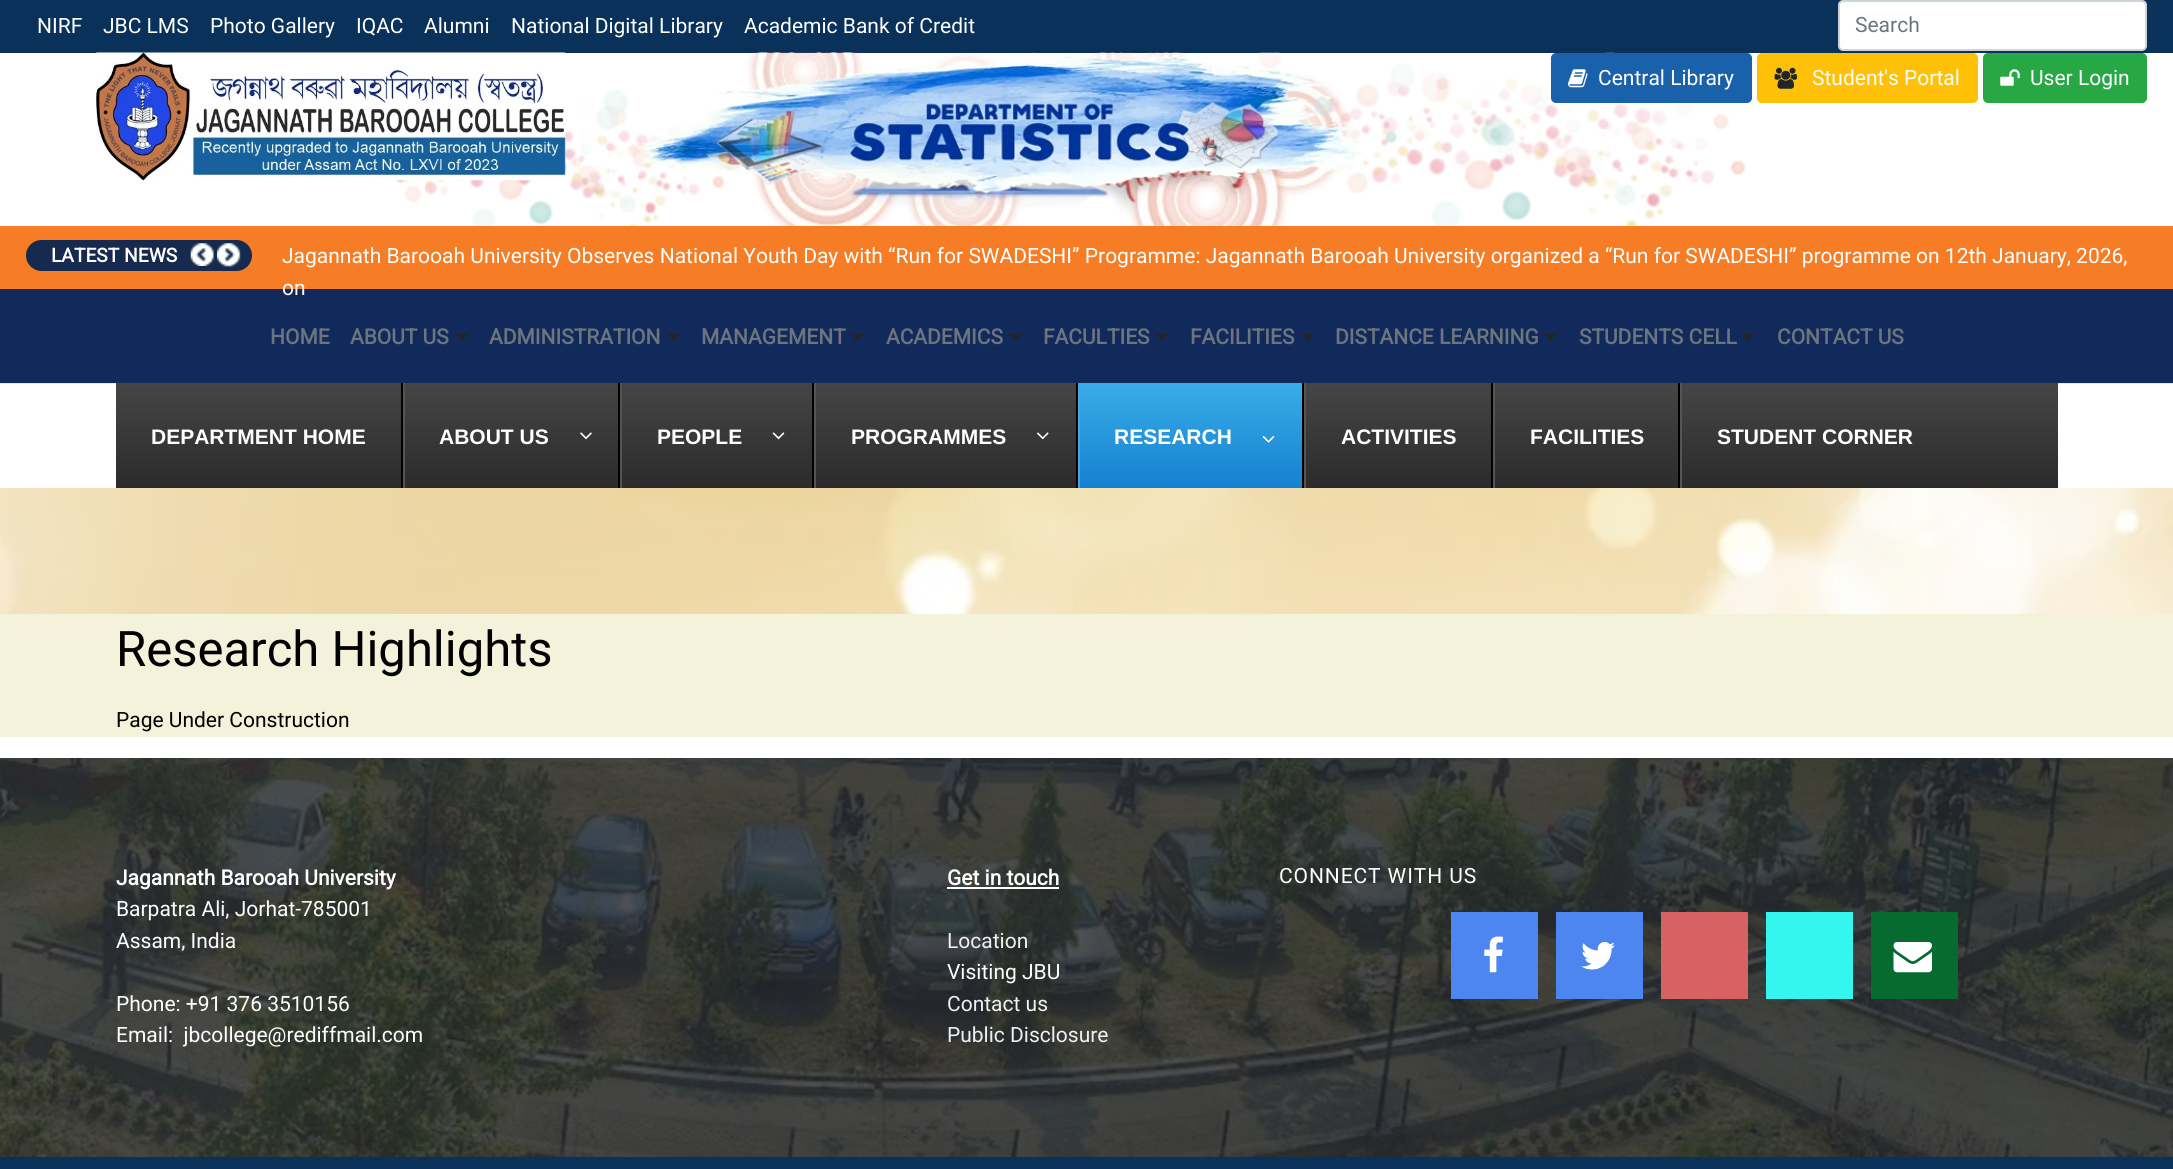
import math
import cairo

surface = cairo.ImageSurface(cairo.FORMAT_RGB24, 2173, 1169)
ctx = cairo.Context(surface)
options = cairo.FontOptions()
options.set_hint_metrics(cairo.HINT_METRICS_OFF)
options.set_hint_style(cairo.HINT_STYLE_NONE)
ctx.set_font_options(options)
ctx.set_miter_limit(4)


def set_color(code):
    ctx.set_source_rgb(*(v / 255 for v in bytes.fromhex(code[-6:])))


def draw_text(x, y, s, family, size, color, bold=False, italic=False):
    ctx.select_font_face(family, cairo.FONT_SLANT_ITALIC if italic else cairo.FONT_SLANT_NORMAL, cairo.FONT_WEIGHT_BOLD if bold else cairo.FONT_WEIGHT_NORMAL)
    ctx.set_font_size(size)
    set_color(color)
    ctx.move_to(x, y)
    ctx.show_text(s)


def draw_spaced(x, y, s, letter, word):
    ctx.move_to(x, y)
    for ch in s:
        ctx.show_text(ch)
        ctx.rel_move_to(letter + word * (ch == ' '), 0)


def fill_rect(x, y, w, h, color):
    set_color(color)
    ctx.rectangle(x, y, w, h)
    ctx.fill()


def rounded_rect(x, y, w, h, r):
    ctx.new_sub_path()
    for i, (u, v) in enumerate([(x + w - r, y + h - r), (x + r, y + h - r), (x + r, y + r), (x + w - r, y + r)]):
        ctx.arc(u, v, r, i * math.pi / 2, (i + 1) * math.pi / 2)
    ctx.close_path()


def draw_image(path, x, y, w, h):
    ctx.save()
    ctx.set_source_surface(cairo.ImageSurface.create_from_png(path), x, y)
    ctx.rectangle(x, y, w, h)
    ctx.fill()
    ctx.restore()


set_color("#ffffff")
ctx.paint()
fill_rect(0, 383, 2173, 1, "#e7e7e8")
fill_rect(0, 0, 2173, 53, "#09315a")
draw_text(37, 33, "NIRF", "Roboto", 21, "#ffffff")
draw_text(103, 33, "JBC LMS", "Roboto", 21, "#ffffff")
draw_text(210, 33, "Photo Gallery", "Roboto", 21, "#ffffff")
draw_text(356, 33, "IQAC", "Roboto", 21, "#ffffff")
draw_text(424, 33, "Alumni", "Roboto", 21, "#ffffff")
draw_text(511, 33, "National Digital Library", "Roboto", 21, "#ffffff")
draw_text(744, 33, "Academic Bank of Credit", "Roboto", 21, "#ffffff")
rounded_rect(1839, 1, 307, 49, 4)
ctx.fill_preserve()
set_color("#ced4da")
ctx.stroke()
draw_text(1855, 32, "Search", "Roboto", 21, "#6c757d")
draw_image("assets/img1.png", 395, 52, 1351, 174)
draw_image("assets/img2.png", 96, 52, 470, 129)
draw_image("assets/img3.png", 641, 52, 724, 142)
set_color("#1a61ab")
rounded_rect(1552, 54, 199, 48, 4)
ctx.fill_preserve()
ctx.stroke()
draw_image("assets/img4.png", 1568, 69, 20, 19)
draw_text(1598, 85, "Central Library", "Roboto", 21, "#ffffff")
set_color("#ffc107")
rounded_rect(1758, 54, 219, 48, 4)
ctx.fill_preserve()
ctx.stroke()
draw_image("assets/img5.png", 1774, 67, 23, 22)
draw_text(1812, 85, "Student's Portal", "Roboto", 21, "#ffffff")
set_color("#28a745")
rounded_rect(1984, 54, 162, 48, 4)
ctx.fill_preserve()
ctx.stroke()
draw_image("assets/img6.png", 2000, 69, 20, 17)
draw_text(2030, 85, "User Login", "Roboto", 21, "#ffffff")
fill_rect(0, 226, 2173, 63, "#f67d25")
set_color("#162a4f")
rounded_rect(26, 240, 226, 31, 15.5)
ctx.fill()
draw_text(51, 262, "LATEST NEWS", "Roboto", 19.25, "#ffffff", bold=True)
draw_image("assets/img7.png", 190, 243, 24, 23)
draw_image("assets/img8.png", 217, 243, 24, 24)
draw_text(282, 263, "Jagannath Barooah University Observes National Youth Day with “Run for SWADESHI” Programme: Jagannath Barooah University organized a “Run for SWADESHI” programme on 12th January, 2026,", "Roboto", 21, "#ffffff")
fill_rect(0, 291, 2173, 91, "#12295b")
fill_rect(0, 289, 2173, 2, "#162b58")
draw_text(282, 295, "on", "Roboto", 21, "#ffffff")
fill_rect(0, 382, 2173, 1, "#162b58")
draw_text(270, 344, "HOME", "Roboto", 21, "#6c757d", bold=True)
draw_text(350, 344, "ABOUT US", "Roboto", 21, "#6c757d", bold=True)
set_color("#212529")
ctx.new_path()
ctx.move_to(455, 334)
ctx.line_to(469, 334)
ctx.line_to(462, 341)
ctx.close_path()
ctx.fill()
draw_text(489, 344, "ADMINISTRATION", "Roboto", 21, "#6c757d", bold=True)
set_color("#212529")
ctx.new_path()
ctx.move_to(667, 334)
ctx.line_to(681, 334)
ctx.line_to(674, 341)
ctx.close_path()
ctx.fill()
draw_text(701, 344, "MANAGEMENT", "Roboto", 21, "#6c757d", bold=True)
set_color("#212529")
ctx.new_path()
ctx.move_to(850.5, 334)
ctx.line_to(864.5, 334)
ctx.line_to(857.5, 341)
ctx.close_path()
ctx.fill()
draw_text(886, 344, "ACADEMICS", "Roboto", 21, "#6c757d", bold=True)
set_color("#212529")
ctx.new_path()
ctx.move_to(1008, 334)
ctx.line_to(1022, 334)
ctx.line_to(1015, 341)
ctx.close_path()
ctx.fill()
draw_text(1043, 344, "FACULTIES", "Roboto", 21, "#6c757d", bold=True)
set_color("#212529")
ctx.new_path()
ctx.move_to(1155, 334)
ctx.line_to(1169, 334)
ctx.line_to(1162, 341)
ctx.close_path()
ctx.fill()
draw_text(1190, 344, "FACILITIES", "Roboto", 21, "#6c757d", bold=True)
set_color("#212529")
ctx.new_path()
ctx.move_to(1300, 334)
ctx.line_to(1314, 334)
ctx.line_to(1307, 341)
ctx.close_path()
ctx.fill()
draw_text(1335, 344, "DISTANCE LEARNING", "Roboto", 21, "#6c757d", bold=True)
set_color("#212529")
ctx.new_path()
ctx.move_to(1543.5, 334)
ctx.line_to(1557.5, 334)
ctx.line_to(1550.5, 341)
ctx.close_path()
ctx.fill()
draw_text(1579, 344, "STUDENTS CELL", "Roboto", 21, "#6c757d", bold=True)
set_color("#212529")
ctx.new_path()
ctx.move_to(1741, 334)
ctx.line_to(1755, 334)
ctx.line_to(1748, 341)
ctx.close_path()
ctx.fill()
draw_text(1777, 344, "CONTACT US", "Roboto", 21, "#6c757d", bold=True)
gradient = cairo.LinearGradient(1087, 383, 1087, 488)
gradient.add_color_stop_rgba(0, 0.271, 0.271, 0.271, 1)
gradient.add_color_stop_rgba(1, 0.169, 0.169, 0.169, 1)
ctx.set_source(gradient)
ctx.rectangle(116, 383, 1942, 105)
ctx.fill()
fill_rect(401, 383, 2, 105, "#000000")
draw_text(151, 444, "DEPARTMENT HOME", "Liberation Sans", 21, "#ffffff", bold=True)
fill_rect(618, 383, 2, 105, "#000000")
fill_rect(403, 383, 2, 105, "#555555")
draw_text(439, 444, "ABOUT US", "Liberation Sans", 21, "#ffffff", bold=True)
draw_image("assets/img9.png", 580, 432, 12, 8)
fill_rect(812, 383, 2, 105, "#000000")
fill_rect(620, 383, 2, 105, "#555555")
draw_text(657, 444, "PEOPLE", "Liberation Sans", 21, "#ffffff", bold=True)
draw_image("assets/img10.png", 772, 432, 13, 8)
fill_rect(1076, 383, 2, 105, "#000000")
fill_rect(814, 383, 2, 105, "#555555")
draw_text(851, 444, "PROGRAMMES", "Liberation Sans", 21, "#ffffff", bold=True)
draw_image("assets/img11.png", 1036, 432, 13, 8)
gradient = cairo.LinearGradient(1191, 383, 1191, 488)
gradient.add_color_stop_rgba(0, 0.22, 0.675, 0.906, 1)
gradient.add_color_stop_rgba(1, 0.086, 0.506, 0.82, 1)
ctx.set_source(gradient)
ctx.rectangle(1080, 383, 222, 105)
ctx.fill()
fill_rect(1302, 383, 2, 105, "#000000")
fill_rect(1078, 383, 2, 105, "#46a5df")
draw_text(1114, 444, "RESEARCH", "Liberation Sans", 21, "#ffffff", bold=True)
draw_image("assets/img12.png", 1262, 436, 13, 7)
fill_rect(1491, 383, 2, 105, "#000000")
fill_rect(1304, 383, 2, 105, "#555555")
draw_text(1341, 444, "ACTIVITIES", "Liberation Sans", 21, "#ffffff", bold=True)
fill_rect(1678, 383, 2, 105, "#000000")
fill_rect(1493, 383, 2, 105, "#555555")
draw_text(1530, 444, "FACILITIES", "Liberation Sans", 21, "#ffffff", bold=True)
fill_rect(1680, 383, 2, 105, "#555555")
draw_text(1717, 444, "STUDENT CORNER", "Liberation Sans", 21, "#ffffff", bold=True)
draw_image("assets/img13.png", 0, 488, 2173, 126)
fill_rect(0, 614, 2173, 123, "#f5f2dc")
draw_text(116, 666, "Research Highlights", "Roboto", 49, "#000000")
draw_text(116, 727, "Page Under Construction", "Roboto", 21, "#000000")
fill_rect(0, 758, 2173, 399, "#212529")
draw_image("assets/img14.png", 0, 758, 2173, 399)
draw_text(116, 885, "Jagannath Barooah University", "Roboto", 21, "#ffffff", bold=True)
draw_text(116, 916, "Barpatra Ali, Jorhat-785001", "Roboto", 21, "#ffffff")
draw_text(116, 948, "Assam, India", "Roboto", 21, "#ffffff")
draw_text(116, 1011, "Phone: +91 376 3510156", "Roboto", 21, "#ffffff")
draw_text(116, 1042, "Email:  jbcollege@rediffmail.com", "Roboto", 21, "#ffffff")
draw_text(947, 885, "Get in touch", "Roboto", 21, "#ffffff", bold=True)
fill_rect(947, 887, 112, 2, "#ffffff")
draw_text(947, 948, "Location", "Roboto", 21, "#eef1f3")
draw_text(947, 979, "Visiting JBU", "Roboto", 21, "#ffffff")
draw_text(947, 1011, "Contact us", "Roboto", 21, "#eef1f3")
draw_text(947, 1042, "Public Disclosure", "Roboto", 21, "#eef1f3")
set_color("#ffffff")
draw_spaced(1279, 883, "CONNECT WITH US", 0.9, 0)
fill_rect(1451, 912, 87, 87, "#4d86f0")
draw_image("assets/img15.png", 1484, 936, 19, 37)
fill_rect(1556, 912, 87, 87, "#4d86f0")
draw_image("assets/img16.png", 1581, 942, 34, 28)
fill_rect(1661, 912, 87, 87, "#d66262")
fill_rect(1766, 912, 87, 87, "#34f5ef")
fill_rect(1871, 912, 87, 87, "#056b2e")
draw_image("assets/img17.png", 1893, 942, 39, 31)
fill_rect(0, 1157, 2173, 12, "#09315a")
surface.write_to_png("output.png")
